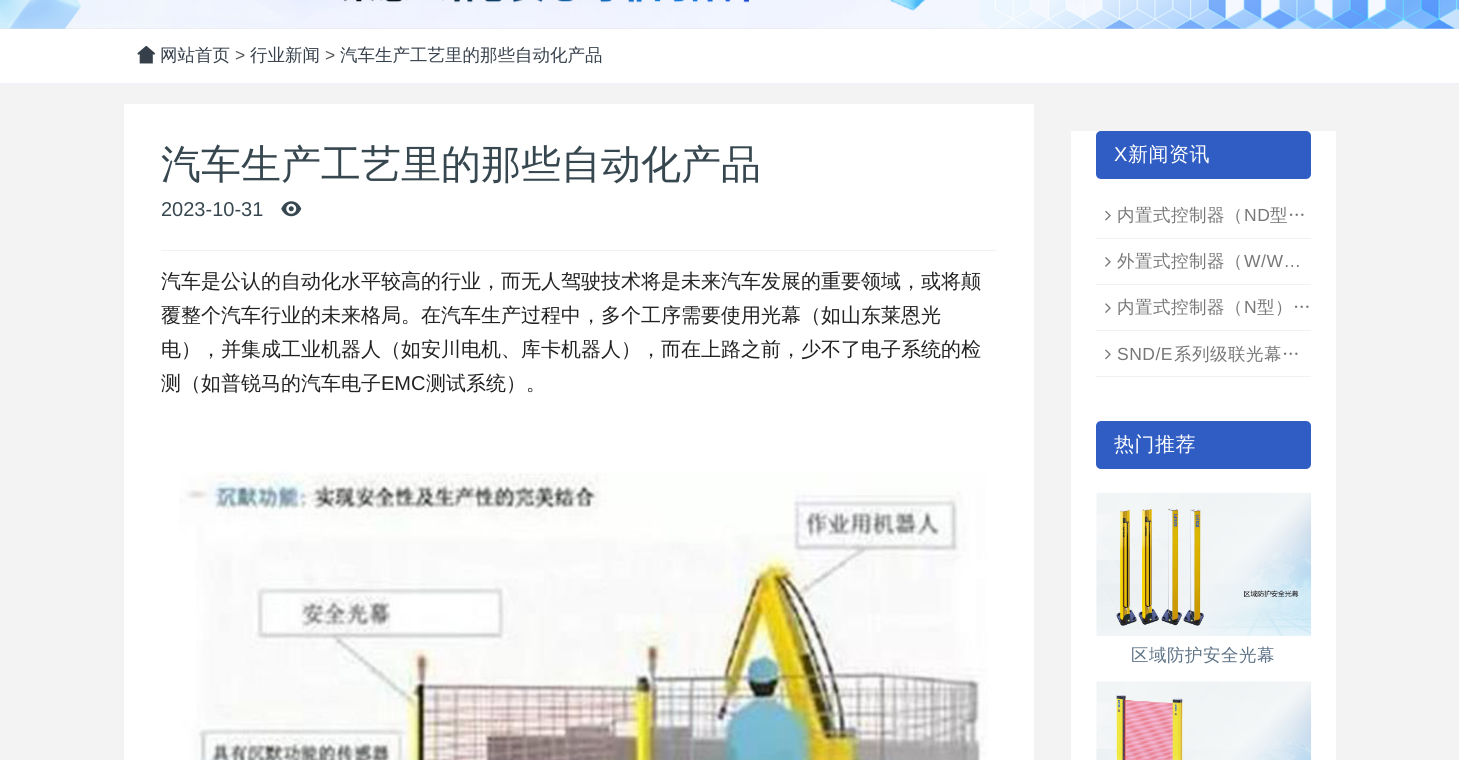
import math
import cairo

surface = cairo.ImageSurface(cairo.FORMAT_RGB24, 1459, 760)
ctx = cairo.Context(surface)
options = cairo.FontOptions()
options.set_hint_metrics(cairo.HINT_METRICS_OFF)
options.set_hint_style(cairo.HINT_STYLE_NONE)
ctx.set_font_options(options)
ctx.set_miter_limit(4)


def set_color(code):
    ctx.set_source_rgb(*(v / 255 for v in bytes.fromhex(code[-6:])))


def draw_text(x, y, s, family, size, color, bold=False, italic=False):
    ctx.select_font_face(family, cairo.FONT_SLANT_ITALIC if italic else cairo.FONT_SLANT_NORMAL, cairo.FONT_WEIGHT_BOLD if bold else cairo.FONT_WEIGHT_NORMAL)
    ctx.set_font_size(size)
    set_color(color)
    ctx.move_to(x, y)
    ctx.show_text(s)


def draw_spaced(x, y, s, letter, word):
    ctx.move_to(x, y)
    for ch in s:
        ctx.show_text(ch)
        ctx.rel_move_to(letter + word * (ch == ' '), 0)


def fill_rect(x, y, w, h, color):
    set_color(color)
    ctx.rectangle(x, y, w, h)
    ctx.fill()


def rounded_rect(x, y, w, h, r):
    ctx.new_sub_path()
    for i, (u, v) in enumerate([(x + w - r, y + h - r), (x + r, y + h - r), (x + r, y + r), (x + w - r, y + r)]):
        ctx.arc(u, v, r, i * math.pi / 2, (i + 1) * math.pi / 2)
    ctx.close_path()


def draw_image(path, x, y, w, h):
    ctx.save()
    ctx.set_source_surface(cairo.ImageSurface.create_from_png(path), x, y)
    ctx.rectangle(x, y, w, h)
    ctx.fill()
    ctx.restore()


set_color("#ffffff")
ctx.paint()
fill_rect(0, 28, 1459, 1, "#dddddd")
draw_image("assets/img1.png", 0, 0, 1459, 29)
fill_rect(0, 83, 1459, 2, "#f0f2f5")
draw_image("assets/img2.png", 137, 45, 18, 19)
draw_text(160, 61, "网站首页", "WenQuanYi Zen Hei Medium", 17.5, "#36404b")
draw_text(235, 61, ">", "Liberation Sans", 17.5, "#555555")
draw_text(250, 61, "行业新闻", "WenQuanYi Zen Hei Medium", 17.5, "#36404b")
draw_text(325, 61, ">", "Liberation Sans", 17.5, "#555555")
draw_text(340, 61, "汽车生产工艺里的那些自动化产品", "WenQuanYi Zen Hei Medium", 17.5, "#36404b")
fill_rect(0, 85, 1459, 675, "#f3f3f4")
fill_rect(124, 104, 910, 656, "#ffffff")
draw_text(161, 178, "汽车生产工艺里的那些自动化产品", "WenQuanYi Zen Hei Medium", 40, "#37474f")
fill_rect(161, 250, 835, 1, "#f0f2f5")
draw_text(161, 216, "2023-10-31", "Liberation Sans", 20, "#37474f")
draw_image("assets/img3.png", 281, 201, 21, 16)
draw_text(161, 288, "汽车是公认的自动化水平较高的行业，而无人驾驶技术将是未来汽车发展的重要领域，或将颠", "WenQuanYi Zen Hei Medium", 20, "#222222")
draw_text(161, 322, "覆整个汽车行业的未来格局。在汽车生产过程中，多个工序需要使用光幕（如山东莱恩光", "WenQuanYi Zen Hei Medium", 20, "#222222")
draw_text(161, 356, "电），并集成工业机器人（如安川电机、库卡机器人），而在上路之前，少不了电子系统的检", "WenQuanYi Zen Hei Medium", 20, "#222222")
draw_text(161, 390, "测（如普锐马的汽车电子", "WenQuanYi Zen Hei Medium", 20, "#222222")
draw_text(381, 390, "EMC", "Liberation Sans", 20, "#222222")
draw_text(426, 390, "测试系统）。", "WenQuanYi Zen Hei Medium", 20, "#222222")
draw_image("assets/img4.png", 179, 471, 809, 289)
fill_rect(1071, 131, 265, 629, "#ffffff")
set_color("#305dc3")
rounded_rect(1096, 131, 215, 48, 5)
ctx.fill()
ctx.select_font_face("Liberation Sans")
set_color("#ffffff")
draw_spaced(1114, 161, "X", 0.5, 0)
ctx.select_font_face("WenQuanYi Zen Hei Medium")
draw_spaced(1128, 161, "新闻资讯", 0.5, 0)
fill_rect(1096, 238, 215, 1, "#f2f2f2")
draw_image("assets/img5.png", 1105, 210, 6, 11)
ctx.set_font_size(17.5)
set_color("#777777")
draw_spaced(1117, 221, "内置式控制器（", 0.5, 0)
ctx.select_font_face("Liberation Sans")
draw_spaced(1244, 221, "ND", 0.5, 0)
ctx.select_font_face("WenQuanYi Zen Hei Medium")
draw_spaced(1270, 221, "型…", 0.5, 0)
fill_rect(1096, 284, 215, 1, "#f2f2f2")
draw_image("assets/img6.png", 1105, 257, 6, 10)
set_color("#777777")
draw_spaced(1117, 267, "外置式控制器（", 0.5, 0)
ctx.select_font_face("Liberation Sans")
draw_spaced(1244, 267, "W/W…", 0.5, 0)
fill_rect(1096, 330, 215, 1, "#f2f2f2")
draw_image("assets/img7.png", 1105, 303, 6, 10)
ctx.select_font_face("WenQuanYi Zen Hei Medium")
set_color("#777777")
draw_spaced(1117, 313, "内置式控制器（", 0.5, 0)
ctx.select_font_face("Liberation Sans")
draw_spaced(1244, 313, "N", 0.5, 0)
ctx.select_font_face("WenQuanYi Zen Hei Medium")
draw_spaced(1257, 313, "型）…", 0.5, 0)
fill_rect(1096, 376, 215, 1, "#f2f2f2")
draw_image("assets/img8.png", 1105, 349, 6, 11)
ctx.select_font_face("Liberation Sans")
set_color("#777777")
draw_spaced(1117, 360, "SND/E", 0.5, 0)
ctx.select_font_face("WenQuanYi Zen Hei Medium")
draw_spaced(1174, 360, "系列级联光幕…", 0.5, 0)
set_color("#305dc3")
rounded_rect(1096, 421, 215, 48, 5)
ctx.fill()
ctx.set_font_size(20)
set_color("#ffffff")
draw_spaced(1114, 451, "热门推荐", 0.5, 0)
draw_image("assets/img9.png", 1096, 492, 216, 144)
ctx.set_font_size(17.5)
set_color("#5e7387")
draw_spaced(1131, 661, "区域防护安全光幕", 0.5, 0)
draw_image("assets/img10.png", 1096, 681, 216, 79)
surface.write_to_png("output.png")
